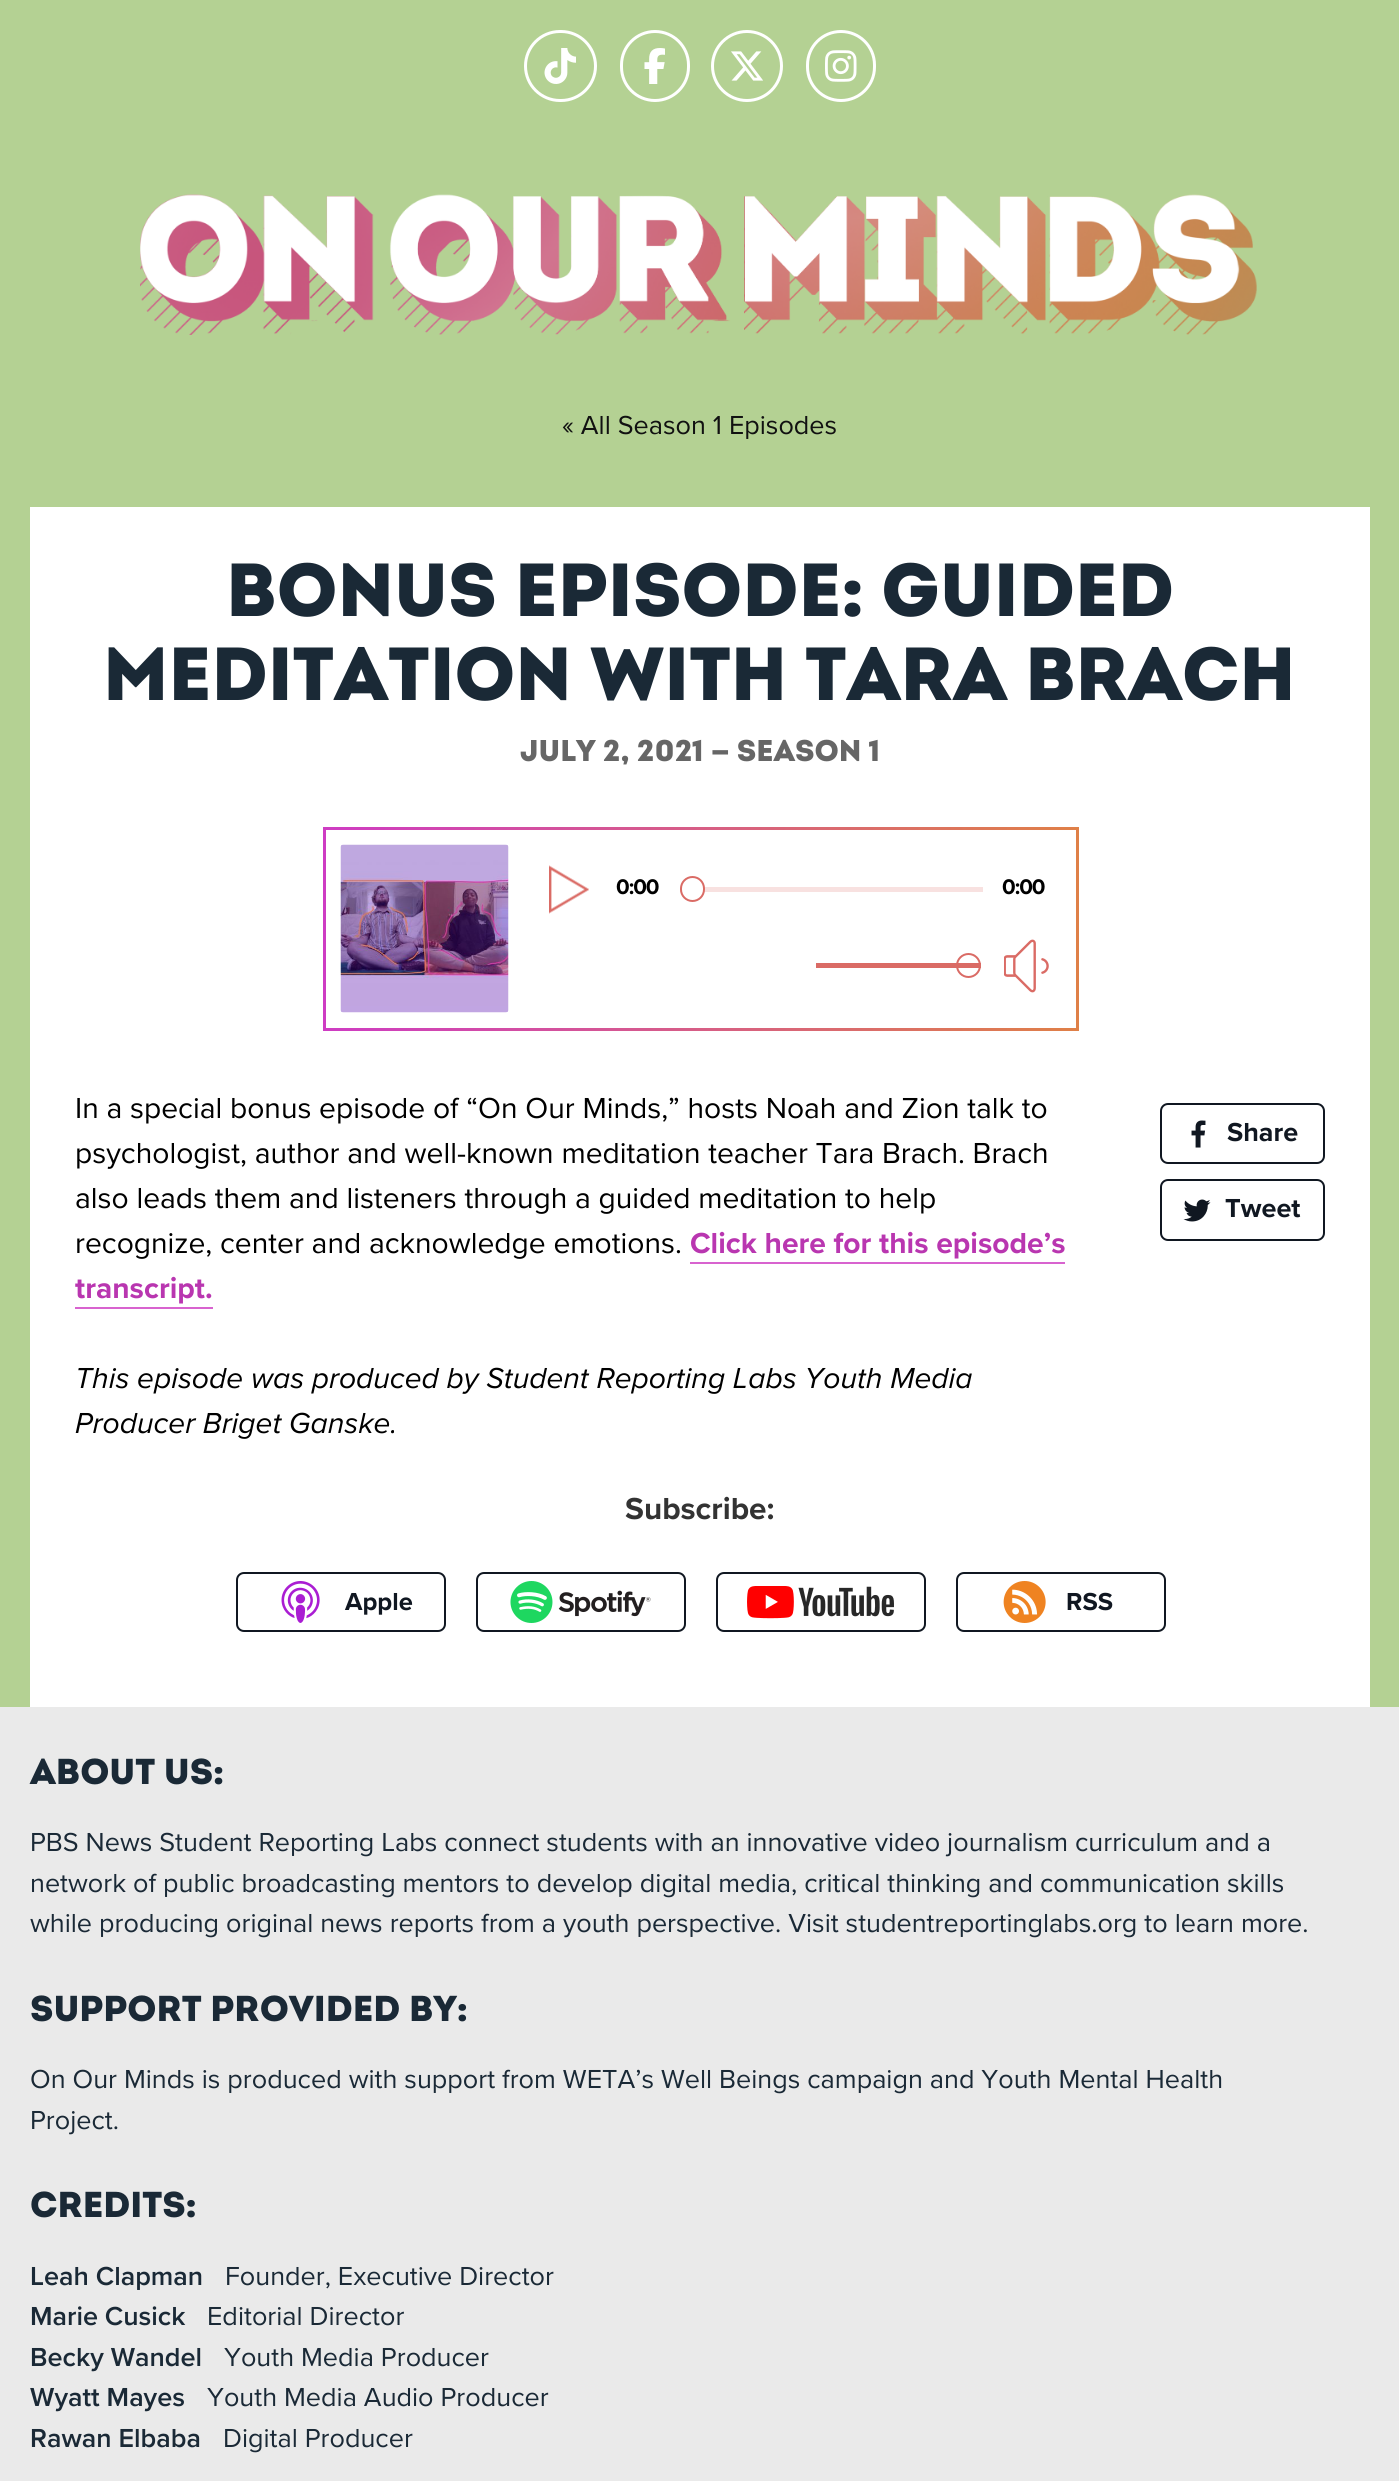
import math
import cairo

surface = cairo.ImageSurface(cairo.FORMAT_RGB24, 1399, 2481)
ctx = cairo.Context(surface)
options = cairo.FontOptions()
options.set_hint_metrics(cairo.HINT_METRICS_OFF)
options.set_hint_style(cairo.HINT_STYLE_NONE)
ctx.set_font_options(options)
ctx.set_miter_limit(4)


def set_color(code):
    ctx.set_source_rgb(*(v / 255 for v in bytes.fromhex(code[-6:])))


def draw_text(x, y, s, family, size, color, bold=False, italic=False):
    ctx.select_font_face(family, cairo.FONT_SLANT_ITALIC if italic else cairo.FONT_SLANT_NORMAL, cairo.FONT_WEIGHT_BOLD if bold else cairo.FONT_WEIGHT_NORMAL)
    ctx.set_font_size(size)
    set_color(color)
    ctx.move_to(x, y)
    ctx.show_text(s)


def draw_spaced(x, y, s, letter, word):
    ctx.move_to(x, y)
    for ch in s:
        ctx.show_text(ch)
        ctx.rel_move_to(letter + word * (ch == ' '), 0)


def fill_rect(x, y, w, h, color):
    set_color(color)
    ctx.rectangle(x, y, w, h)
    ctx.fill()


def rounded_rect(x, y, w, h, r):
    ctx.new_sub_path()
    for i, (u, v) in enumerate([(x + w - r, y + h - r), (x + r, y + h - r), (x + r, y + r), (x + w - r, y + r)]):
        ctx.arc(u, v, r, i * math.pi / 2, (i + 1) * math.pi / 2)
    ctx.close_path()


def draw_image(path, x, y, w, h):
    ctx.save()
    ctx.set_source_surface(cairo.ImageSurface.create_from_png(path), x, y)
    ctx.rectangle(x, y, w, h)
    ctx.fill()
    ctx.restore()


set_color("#b4d193")
ctx.paint()
rounded_rect(525.5, 31.5, 70, 69, 34.5)
set_color("#ffffff")
ctx.set_line_width(3)
ctx.stroke()
draw_image("assets/img1.png", 544, 48, 32, 36)
rounded_rect(621.5, 31.5, 67, 69, 33.5)
ctx.stroke()
draw_image("assets/img2.png", 644, 48, 21, 36)
ctx.arc(747, 66, 34.5, 0, 2 * math.pi)
ctx.stroke()
draw_image("assets/img3.png", 731, 51, 32, 30)
rounded_rect(807.5, 31.5, 67, 69, 33.5)
ctx.stroke()
draw_image("assets/img4.png", 825, 50, 32, 32)
draw_image("assets/img5.png", 140, 194, 1117, 141)
draw_text(562, 434, "« All Season 1 Episodes", "Proxima Nova", 27, "#111111")
fill_rect(30, 507, 1340, 1200, "#ffffff")
draw_text(226, 616, "Bonus Episode: Guided", "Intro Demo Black", 75, "#1a2936")
draw_text(103, 700, "meditation with Tara Brach", "Intro Demo Black", 75, "#1a2936")
draw_text(520, 761, "July 2, 2021 — Season 1", "Intro Demo Black", 30, "#666666")
gradient = cairo.LinearGradient(1079, 929, 323, 929)
gradient.add_color_stop_rgba(0, 0.875, 0.502, 0.278, 1)
gradient.add_color_stop_rgba(1, 0.808, 0.235, 0.765, 1)
ctx.set_source(gradient)
ctx.rectangle(323, 827, 756, 204)
ctx.fill()
fill_rect(326, 830, 750, 198, "#ffffff")
draw_image("assets/img6.png", 340, 844, 169, 169)
draw_image("assets/img7.png", 549, 865, 40, 49)
ctx.select_font_face("Proxima Nova", cairo.FONT_SLANT_NORMAL, cairo.FONT_WEIGHT_BOLD)
ctx.set_font_size(22)
set_color("#000000")
draw_spaced(616, 894, "0:00", -1, 0)
fill_rect(680, 887, 303, 5, "#f8e1e0")
set_color("#ffffff")
rounded_rect(681, 877, 23, 24, 11.5)
ctx.fill_preserve()
set_color("#da6b65")
ctx.set_line_width(2)
ctx.stroke()
set_color("#000000")
draw_spaced(1002, 894, "0:00", -1, 0)
ctx.new_path()
ctx.arc(968.5, 965.5, 11.5, 0, 2 * math.pi)
set_color("#da6b65")
ctx.stroke()
fill_rect(816, 963, 165, 5, "#da6b65")
draw_image("assets/img8.png", 1004, 939, 45, 54)
draw_text(75, 1118, "In a special bonus episode of “On Our Minds,” hosts Noah and Zion talk to", "Proxima Nova", 30, "#000000")
draw_text(75, 1163, "psychologist, author and well-known meditation teacher Tara Brach. Brach", "Proxima Nova", 30, "#000000")
draw_text(75, 1208, "also leads them and listeners through a guided meditation to help", "Proxima Nova", 30, "#000000")
draw_text(75, 1253, "recognize, center and acknowledge emotions.", "Proxima Nova", 30, "#000000")
draw_text(690, 1253, "Click here for this episode’s", "Proxima Nova", 30, "#b936b0", bold=True)
fill_rect(690, 1262, 375, 2, "#d863cf")
draw_text(75, 1298, "transcript.", "Proxima Nova", 30, "#b936b0", bold=True)
fill_rect(75, 1307, 138, 2, "#d863cf")
draw_text(75, 1388, "This episode was produced by Student Reporting Labs Youth Media", "Proxima Nova", 30, "#000000", italic=True)
draw_text(75, 1433, "Producer Briget Ganske.", "Proxima Nova", 30, "#000000", italic=True)
rounded_rect(1161, 1104, 163, 59, 7)
set_color("#101721")
ctx.stroke()
draw_image("assets/img9.png", 1191, 1120, 15, 28)
draw_text(1227, 1141, "Share", "Proxima Nova", 27, "#101721", bold=True)
rounded_rect(1161, 1180, 163, 60, 7)
ctx.stroke()
draw_image("assets/img10.png", 1183, 1199, 28, 23)
draw_text(1225, 1217, "Tweet", "Proxima Nova", 27, "#101721", bold=True)
draw_text(625, 1519, "Subscribe:", "Proxima Nova", 31.5, "#333333", bold=True)
rounded_rect(237, 1573, 208, 58, 7)
set_color("#101721")
ctx.stroke()
draw_image("assets/img11.png", 281, 1581, 39, 42)
draw_text(345, 1610, "Apple", "Proxima Nova", 25.5, "#101721", bold=True)
rounded_rect(477, 1573, 208, 58, 7)
ctx.stroke()
draw_image("assets/img12.png", 510, 1581, 141, 42)
rounded_rect(717, 1573, 208, 58, 7)
ctx.stroke()
draw_image("assets/img13.png", 747, 1586, 147, 33)
rounded_rect(957, 1573, 208, 58, 7)
ctx.stroke()
draw_image("assets/img14.png", 1003, 1581, 43, 42)
draw_text(1066, 1610, "RSS", "Proxima Nova", 25.5, "#101721", bold=True)
fill_rect(0, 1707, 1399, 774, "#eaeaea")
draw_text(30, 1784, "About Us:", "Intro Demo Black", 36, "#1a2936")
draw_text(30, 1851, "PBS News Student Reporting Labs connect students with an innovative video journalism curriculum and a", "Proxima Nova", 27, "#1a2936")
draw_text(30, 1892, "network of public broadcasting mentors to develop digital media, critical thinking and communication skills", "Proxima Nova", 27, "#1a2936")
draw_text(30, 1932, "while producing original news reports from a youth perspective. Visit studentreportinglabs.org to learn more.", "Proxima Nova", 27, "#1a2936")
draw_text(30, 2021, "Support Provided By:", "Intro Demo Black", 36, "#1a2936")
draw_text(30, 2088, "On Our Minds is produced with support from WETA’s Well Beings campaign and Youth Mental Health", "Proxima Nova", 27, "#1a2936")
draw_text(30, 2129, "Project.", "Proxima Nova", 27, "#1a2936")
draw_text(30, 2217, "Credits:", "Intro Demo Black", 36, "#1a2936")
draw_text(30, 2285, "Leah Clapman", "Proxima Nova SemiBold", 27, "#1a2936")
draw_text(225, 2285, "Founder, Executive Director", "Proxima Nova", 27, "#1a2936")
draw_text(30, 2325, "Marie Cusick", "Proxima Nova SemiBold", 27, "#1a2936")
draw_text(207, 2325, "Editorial Director", "Proxima Nova", 27, "#1a2936")
draw_text(30, 2366, "Becky Wandel", "Proxima Nova SemiBold", 27, "#1a2936")
draw_text(224, 2366, "Youth Media Producer", "Proxima Nova", 27, "#1a2936")
draw_text(30, 2406, "Wyatt Mayes", "Proxima Nova SemiBold", 27, "#1a2936")
draw_text(207, 2406, "Youth Media Audio Producer", "Proxima Nova", 27, "#1a2936")
draw_text(30, 2447, "Rawan Elbaba", "Proxima Nova SemiBold", 27, "#1a2936")
draw_text(223, 2447, "Digital Producer", "Proxima Nova", 27, "#1a2936")
surface.write_to_png("output.png")
